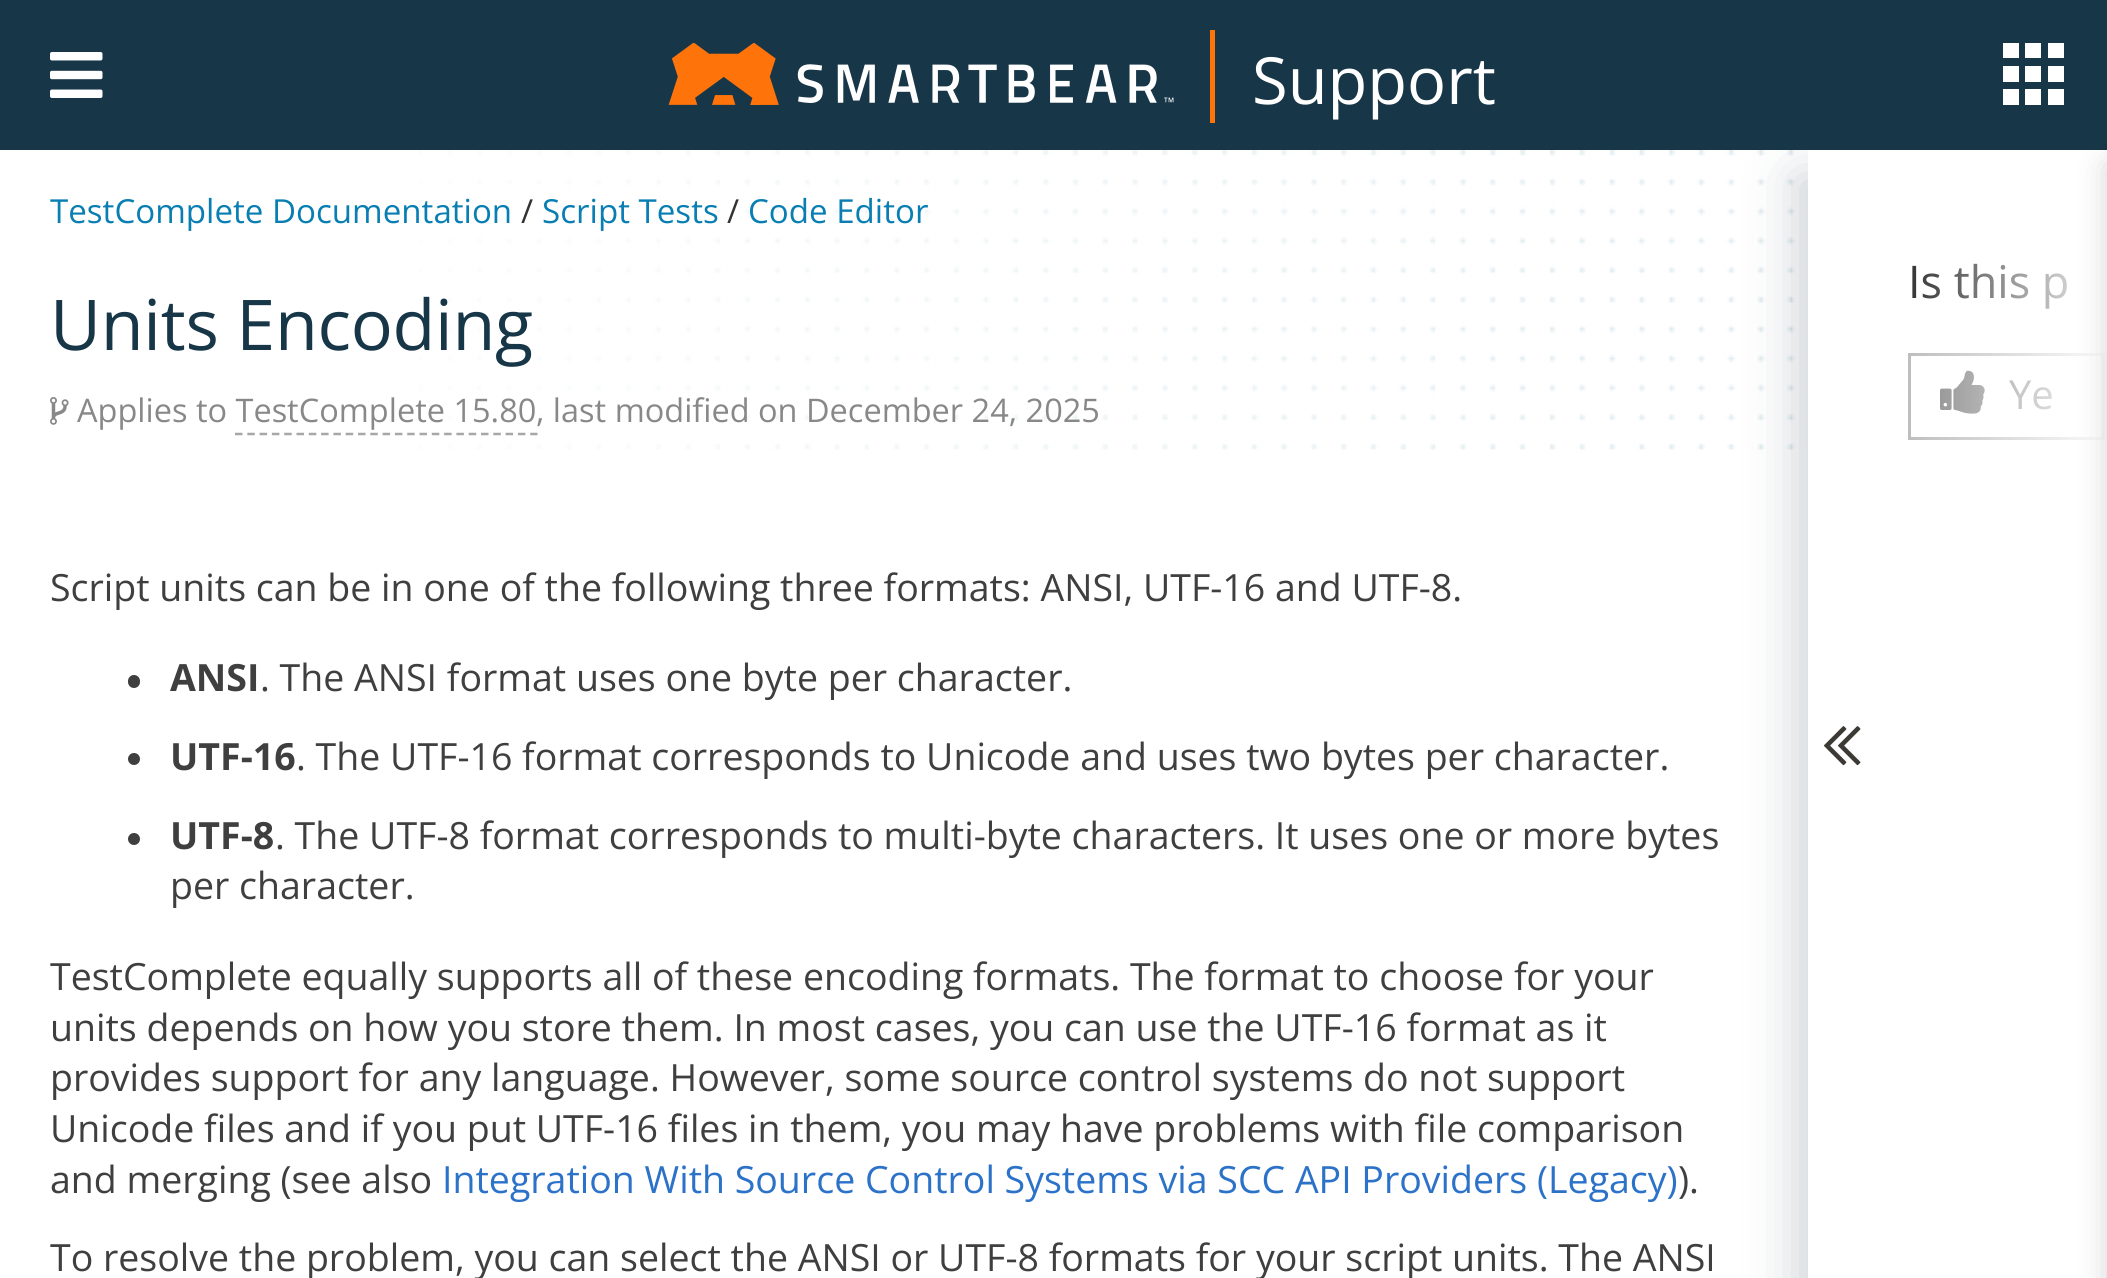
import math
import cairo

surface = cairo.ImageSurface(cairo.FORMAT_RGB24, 2107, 1278)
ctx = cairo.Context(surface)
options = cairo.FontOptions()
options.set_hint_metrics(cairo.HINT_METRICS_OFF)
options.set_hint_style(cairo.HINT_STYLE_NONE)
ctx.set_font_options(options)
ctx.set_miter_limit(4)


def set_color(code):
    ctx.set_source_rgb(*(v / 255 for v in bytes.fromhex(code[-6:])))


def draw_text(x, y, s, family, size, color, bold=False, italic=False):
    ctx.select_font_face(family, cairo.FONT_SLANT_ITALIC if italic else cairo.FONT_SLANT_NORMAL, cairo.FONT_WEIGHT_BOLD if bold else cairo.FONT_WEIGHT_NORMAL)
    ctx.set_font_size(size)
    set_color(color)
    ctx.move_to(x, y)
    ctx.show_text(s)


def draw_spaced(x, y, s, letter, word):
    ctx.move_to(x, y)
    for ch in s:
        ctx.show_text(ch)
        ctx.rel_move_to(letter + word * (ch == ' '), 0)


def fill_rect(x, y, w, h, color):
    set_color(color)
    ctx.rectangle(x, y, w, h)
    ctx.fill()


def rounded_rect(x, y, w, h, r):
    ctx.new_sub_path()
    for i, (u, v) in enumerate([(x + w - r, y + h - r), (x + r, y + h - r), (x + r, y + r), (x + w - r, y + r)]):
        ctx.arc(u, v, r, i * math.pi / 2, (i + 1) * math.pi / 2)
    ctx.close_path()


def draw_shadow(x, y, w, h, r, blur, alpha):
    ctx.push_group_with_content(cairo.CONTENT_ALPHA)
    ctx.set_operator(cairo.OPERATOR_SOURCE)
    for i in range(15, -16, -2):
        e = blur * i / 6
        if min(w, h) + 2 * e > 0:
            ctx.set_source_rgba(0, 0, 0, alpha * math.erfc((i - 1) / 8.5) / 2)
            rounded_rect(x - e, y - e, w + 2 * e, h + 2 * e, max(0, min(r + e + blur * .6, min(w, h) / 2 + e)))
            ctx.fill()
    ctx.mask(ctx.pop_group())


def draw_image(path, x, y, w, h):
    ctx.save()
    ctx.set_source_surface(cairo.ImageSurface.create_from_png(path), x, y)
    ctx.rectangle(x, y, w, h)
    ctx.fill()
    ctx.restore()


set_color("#ffffff")
ctx.paint()
draw_image("assets/img3.png", 419, 150, 1389, 300)
set_color("#112838")
draw_shadow(1795, 175, 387, 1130, 0, 25, 0.2)
fill_rect(0, 0, 2107, 150, "#173647")
draw_image("assets/img1.png", 50, 52, 53, 46)
draw_image("assets/img2.png", 668, 43, 506, 62)
fill_rect(1210, 30, 5, 93, "#ff730b")
draw_text(1252, 104, "Support", "Open Sans", 65, "#ffffff")
fill_rect(2003, 43, 16, 15, "#ffffff")
fill_rect(2025, 43, 16, 15, "#ffffff")
fill_rect(2048, 43, 16, 15, "#ffffff")
fill_rect(2003, 66, 16, 16, "#ffffff")
fill_rect(2025, 66, 16, 16, "#ffffff")
fill_rect(2048, 66, 16, 16, "#ffffff")
fill_rect(2003, 89, 16, 16, "#ffffff")
fill_rect(2025, 89, 16, 16, "#ffffff")
fill_rect(2048, 89, 16, 16, "#ffffff")
fill_rect(1808, 150, 299, 1128, "#ffffff")
ctx.rectangle(1909.5, 354.5, 194, 84)
set_color("#bebebe")
ctx.set_line_width(3)
ctx.stroke()
draw_text(1908, 298, "Is this p", "Open Sans", 45, "#333333")
draw_image("assets/img5.png", 1940, 370, 45, 44)
draw_text(2009, 409, "Ye", "Open Sans", 40, "#888888")
gradient = cairo.LinearGradient(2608, 715, 1908, 715)
gradient.add_color_stop_rgba(0, 1, 1, 1, 1)
gradient.add_color_stop_rgba(0.7, 1, 1, 1, 1)
gradient.add_color_stop_rgba(1, 1, 1, 1, 0)
ctx.set_source(gradient)
ctx.rectangle(1913, 263, 192, 177)
ctx.fill()
set_color("#000000")
draw_shadow(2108, 165, 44, 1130, 0, 15, 0.18)
draw_text(50, 223, "TestComplete Documentation", "Open Sans", 33.1, "#097eb2")
draw_text(521, 223, "/", "Open Sans", 33.1, "#333333")
draw_text(542, 223, "Script Tests", "Open Sans", 33.1, "#097eb2")
draw_text(727, 223, "/", "Open Sans", 33.1, "#333333")
draw_text(748, 223, "Code Editor", "Open Sans", 33.1, "#097eb2")
ctx.set_font_size(70)
set_color("#173647")
draw_spaced(50, 350, "Units Encoding", -0.3, 0)
draw_image("assets/img4.png", 50, 397, 19, 28)
draw_text(77, 422, "Applies to TestComplete 15.80", "Open Sans", 32.5, "#888888")
draw_text(536, 422, ", last modified on December 24, 2025", "Open Sans", 32.5, "#888888")
ctx.new_path()
ctx.move_to(235, 434)
ctx.line_to(537.5, 434)
set_color("#a7a7a7")
ctx.set_line_width(2.5)
ctx.set_dash([7.5, 4.8])
ctx.stroke()
draw_image("assets/img6.png", 1824, 726, 37, 40)
draw_text(50, 601, "Script units can be in one of the following three formats: ANSI, UTF-16 and UTF-8.", "Open Sans", 37.5, "#3f3f3f")
rounded_rect(128, 675, 12, 13, 6)
ctx.fill()
draw_text(170, 691, "ANSI", "Open Sans", 37.5, "#3f3f3f", bold=True)
draw_text(260, 691, ". The ANSI format uses one byte per character.", "Open Sans", 37.5, "#3f3f3f")
ctx.new_path()
ctx.arc(134, 759, 6, 0, 2 * math.pi)
ctx.fill()
draw_text(170, 770, "UTF-16", "Open Sans", 37.5, "#3f3f3f", bold=True)
draw_text(296, 770, ". The UTF-16 format corresponds to Unicode and uses two bytes per character.", "Open Sans", 37.5, "#3f3f3f")
ctx.new_path()
ctx.arc(134, 839, 6, 0, 2 * math.pi)
ctx.fill()
draw_text(170, 849, "UTF-8", "Open Sans", 37.5, "#3f3f3f", bold=True)
draw_text(275, 849, ". The UTF-8 format corresponds to multi-byte characters. It uses one or more bytes", "Open Sans", 37.5, "#3f3f3f")
draw_text(170, 899, "per character.", "Open Sans", 37.5, "#3f3f3f")
draw_text(50, 990, "TestComplete equally supports all of these encoding formats. The format to choose for your", "Open Sans", 37.5, "#3f3f3f")
draw_text(50, 1041, "units depends on how you store them. In most cases, you can use the UTF-16 format as it", "Open Sans", 37.5, "#3f3f3f")
draw_text(50, 1091, "provides support for any language. However, some source control systems do not support", "Open Sans", 37.5, "#3f3f3f")
draw_text(50, 1142, "Unicode files and if you put UTF-16 files in them, you may have problems with file comparison", "Open Sans", 37.5, "#3f3f3f")
draw_text(50, 1193, "and merging (see also", "Open Sans", 37.5, "#3f3f3f")
draw_text(442, 1193, "Integration With Source Control Systems via SCC API Providers (Legacy)", "Open Sans", 37.5, "#2c72c8")
draw_text(1678, 1193, ").", "Open Sans", 37.5, "#3f3f3f")
draw_text(50, 1271, "To resolve the problem, you can select the ANSI or UTF-8 formats for your script units. The ANSI", "Open Sans", 37.5, "#3f3f3f")
surface.write_to_png("output.png")
